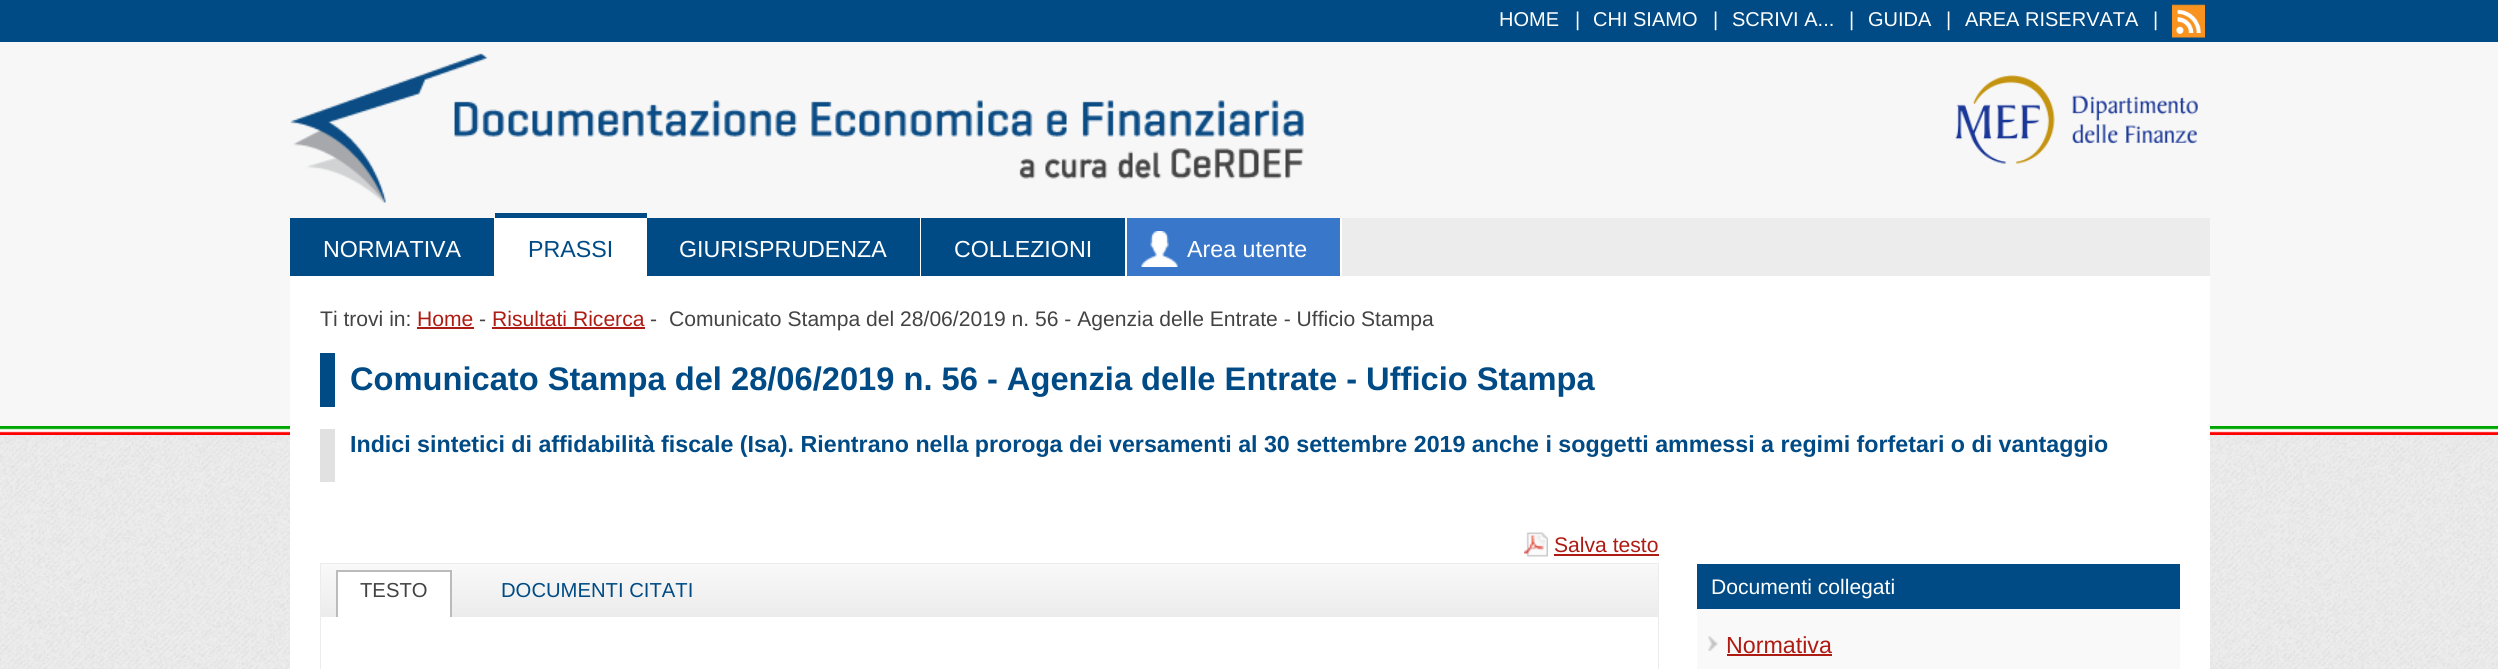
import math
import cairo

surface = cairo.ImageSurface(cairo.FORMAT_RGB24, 2498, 669)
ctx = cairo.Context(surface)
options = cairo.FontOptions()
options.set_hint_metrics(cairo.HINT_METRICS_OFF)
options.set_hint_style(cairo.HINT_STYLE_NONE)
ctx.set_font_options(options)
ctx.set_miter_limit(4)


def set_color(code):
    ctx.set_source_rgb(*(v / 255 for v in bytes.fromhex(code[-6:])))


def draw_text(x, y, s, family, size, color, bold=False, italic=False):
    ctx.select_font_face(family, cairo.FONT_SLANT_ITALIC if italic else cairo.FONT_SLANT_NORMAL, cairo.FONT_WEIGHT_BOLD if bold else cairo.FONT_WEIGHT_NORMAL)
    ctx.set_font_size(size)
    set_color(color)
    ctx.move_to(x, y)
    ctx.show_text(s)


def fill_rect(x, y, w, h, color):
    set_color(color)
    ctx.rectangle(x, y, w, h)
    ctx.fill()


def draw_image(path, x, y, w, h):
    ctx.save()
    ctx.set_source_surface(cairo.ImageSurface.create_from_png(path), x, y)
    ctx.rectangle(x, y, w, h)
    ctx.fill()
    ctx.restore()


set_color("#ffffff")
ctx.paint()
draw_image("assets/img1.png", 0, 435, 2498, 234)
fill_rect(0, 0, 2498, 42, "#004b85")
draw_text(1499, 26, "HOME", "Liberation Sans", 20, "#ffffff")
draw_text(1575, 26, "|", "Liberation Sans", 20, "#ffffff")
draw_text(1593, 26, "CHI SIAMO", "Liberation Sans", 20, "#ffffff")
draw_text(1713, 26, "|", "Liberation Sans", 20, "#ffffff")
draw_text(1732, 26, "SCRIVI A...", "Liberation Sans", 20, "#ffffff")
draw_text(1849, 26, "|", "Liberation Sans", 20, "#ffffff")
draw_text(1868, 26, "GUIDA", "Liberation Sans", 20, "#ffffff")
draw_text(1946, 26, "|", "Liberation Sans", 20, "#ffffff")
draw_text(1965, 26, "AREA RISERVATA", "Liberation Sans", 20, "#ffffff")
draw_text(2153, 26, "|", "Liberation Sans", 20, "#ffffff")
draw_image("assets/img2.png", 2172, 4, 33, 34)
fill_rect(0, 42, 2498, 384, "#f7f7f7")
draw_image("assets/img3.png", 290, 53, 1014, 150)
draw_image("assets/img4.png", 1955, 75, 243, 89)
draw_image("assets/img5.png", 0, 426, 2498, 9)
fill_rect(1342, 218, 868, 58, "#ececec")
fill_rect(494, 218, 1, 63, "#ffffff")
fill_rect(290, 218, 204, 58, "#004b85")
draw_text(323, 257, "NORMATIVA", "Liberation Sans", 23.23, "#ffffff")
fill_rect(495, 213, 152, 5, "#004b85")
fill_rect(495, 218, 152, 58, "#ffffff")
draw_text(528, 257, "PRASSI", "Liberation Sans", 23.23, "#004b85")
fill_rect(920, 218, 1, 63, "#ffffff")
fill_rect(647, 218, 273, 58, "#004b85")
draw_text(679, 257, "GIURISPRUDENZA", "Liberation Sans", 23.23, "#ffffff")
fill_rect(1125, 218, 2, 63, "#ffffff")
fill_rect(921, 218, 204, 58, "#004b85")
draw_text(954, 257, "COLLEZIONI", "Liberation Sans", 23.23, "#ffffff")
fill_rect(1340, 218, 2, 63, "#ffffff")
fill_rect(1127, 218, 213, 58, "#3977ca")
draw_image("assets/img6.png", 1141, 231, 37, 36)
draw_text(1187, 257, "Area utente", "Liberation Sans", 23.23, "#ffffff")
fill_rect(290, 276, 1920, 393, "#ffffff")
draw_text(320, 326, "Ti trovi in:", "Liberation Sans", 21.1, "#434343")
draw_text(417, 326, "Home", "Liberation Sans", 21.1, "#ae1b13")
fill_rect(417, 327, 57, 2, "#ae1b13")
draw_text(479, 326, "-", "Liberation Sans", 21.1, "#434343")
draw_text(492, 326, "Risultati Ricerca", "Liberation Sans", 21.1, "#ae1b13")
fill_rect(492, 327, 153, 2, "#ae1b13")
draw_text(650, 326, "-", "Liberation Sans", 21.1, "#434343")
draw_text(669, 326, "Comunicato Stampa del 28/06/2019 n. 56 - Agenzia delle Entrate - Ufficio Stampa", "Liberation Sans", 21.1, "#434343")
fill_rect(320, 353, 15, 54, "#004b85")
draw_text(350, 390, "Comunicato Stampa del 28/06/2019 n. 56 - Agenzia delle Entrate - Ufficio Stampa", "Liberation Sans", 32.65, "#004b85", bold=True)
fill_rect(320, 429, 15, 53, "#e1e1e1")
draw_text(350, 452, "Indici sintetici di affidabilità fiscale (Isa). Rientrano nella proroga dei versamenti al 30 settembre 2019 anche i soggetti ammessi a regimi forfetari o di vantaggio", "Liberation Sans", 23.23, "#004b85", bold=True)
draw_image("assets/img7.png", 1524, 532, 24, 25)
draw_text(1554, 552, "Salva testo", "Liberation Sans", 21.1, "#ae1b13")
fill_rect(1554, 554, 105, 2, "#ae1b13")
ctx.rectangle(321, 564, 1337, 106)
set_color("#ececec")
ctx.stroke()
gradient = cairo.LinearGradient(989, 564, 989, 617)
gradient.add_color_stop_rgba(0, 0.976, 0.976, 0.976, 1)
gradient.add_color_stop_rgba(1, 0.925, 0.925, 0.925, 1)
ctx.set_source(gradient)
ctx.rectangle(321, 564, 1337, 53)
ctx.fill()
fill_rect(338, 572, 112, 45, "#ffffff")
draw_text(360, 597, "TESTO", "Liberation Sans", 20.25, "#434343")
fill_rect(336, 570, 116, 2, "#bbbbbb")
fill_rect(450, 570, 2, 47, "#bbbbbb")
fill_rect(336, 570, 2, 47, "#bbbbbb")
gradient = cairo.LinearGradient(989, 616, 989, 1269)
gradient.add_color_stop_rgba(0, 1, 1, 1, 1)
gradient.add_color_stop_rgba(1, 0.976, 0.976, 0.976, 1)
ctx.set_source(gradient)
ctx.rectangle(321, 617, 1337, 52)
ctx.fill()
draw_text(501, 597, "DOCUMENTI CITATI", "Liberation Sans", 20.25, "#004b85")
fill_rect(1697, 564, 483, 45, "#004b85")
draw_text(1711, 594, "Documenti collegati", "Liberation Sans", 21.1, "#ffffff")
fill_rect(1697, 609, 483, 60, "#f9f9f9")
draw_image("assets/img8.png", 1708, 636, 10, 15)
draw_text(1726, 653, "Normativa", "Liberation Sans", 23.23, "#ae1b13")
fill_rect(1727, 654, 105, 2, "#ae1b13")
surface.write_to_png("output.png")
